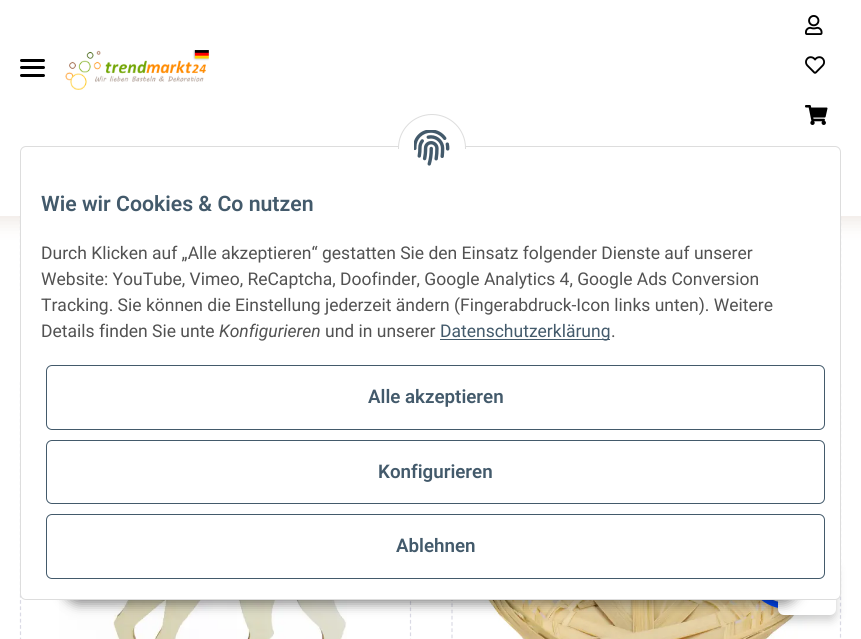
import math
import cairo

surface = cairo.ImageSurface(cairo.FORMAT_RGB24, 861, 639)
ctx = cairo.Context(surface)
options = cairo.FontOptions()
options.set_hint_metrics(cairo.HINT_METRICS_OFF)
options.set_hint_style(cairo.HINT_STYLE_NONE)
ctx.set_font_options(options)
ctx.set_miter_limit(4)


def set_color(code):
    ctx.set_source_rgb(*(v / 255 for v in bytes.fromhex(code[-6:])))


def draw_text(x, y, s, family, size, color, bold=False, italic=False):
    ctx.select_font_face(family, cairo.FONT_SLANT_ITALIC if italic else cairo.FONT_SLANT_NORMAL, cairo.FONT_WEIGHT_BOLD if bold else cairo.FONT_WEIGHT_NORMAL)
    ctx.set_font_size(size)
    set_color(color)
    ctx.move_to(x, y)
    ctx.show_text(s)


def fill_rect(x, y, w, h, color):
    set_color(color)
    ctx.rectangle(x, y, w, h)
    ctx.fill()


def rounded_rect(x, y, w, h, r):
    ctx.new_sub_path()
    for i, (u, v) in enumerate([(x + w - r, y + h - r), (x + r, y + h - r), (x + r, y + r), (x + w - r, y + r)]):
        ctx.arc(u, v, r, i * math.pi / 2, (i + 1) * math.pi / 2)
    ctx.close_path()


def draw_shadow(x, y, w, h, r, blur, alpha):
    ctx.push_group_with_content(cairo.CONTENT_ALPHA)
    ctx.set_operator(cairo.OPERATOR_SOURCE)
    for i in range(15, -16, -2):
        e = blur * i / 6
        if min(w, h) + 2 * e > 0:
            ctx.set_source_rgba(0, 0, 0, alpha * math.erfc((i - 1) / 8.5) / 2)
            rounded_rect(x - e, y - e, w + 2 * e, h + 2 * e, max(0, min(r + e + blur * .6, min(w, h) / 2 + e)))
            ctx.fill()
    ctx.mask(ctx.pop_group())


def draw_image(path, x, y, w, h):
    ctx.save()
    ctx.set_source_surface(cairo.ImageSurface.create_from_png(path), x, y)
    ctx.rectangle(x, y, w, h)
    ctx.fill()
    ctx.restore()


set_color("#ffffff")
ctx.paint()
ctx.new_path()
ctx.move_to(26, -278)
ctx.line_to(405, -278)
ctx.curve_to(408, -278, 410.5, -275.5, 410.5, -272.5)
ctx.line_to(410.5, 290)
ctx.curve_to(410.5, 293, 408, 295.5, 405, 295.5)
ctx.line_to(26, 295.5)
ctx.curve_to(23, 295.5, 20.5, 293, 20.5, 290)
ctx.line_to(20.5, -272.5)
ctx.curve_to(20.5, -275.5, 23, -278, 26, -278)
ctx.close_path()
set_color("#dadae5")
ctx.set_line_width(1.2)
ctx.set_dash([3.75, 2.5])
ctx.stroke()
ctx.new_path()
ctx.move_to(457.5, -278)
ctx.line_to(835, -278)
ctx.curve_to(838, -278, 840.5, -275.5, 840.5, -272.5)
ctx.line_to(840.5, 290)
ctx.curve_to(840.5, 293, 838, 295.5, 835, 295.5)
ctx.line_to(457.5, 295.5)
ctx.curve_to(454.5, 295.5, 452, 293, 452, 290)
ctx.line_to(452, -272.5)
ctx.curve_to(452, -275.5, 454.5, -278, 457.5, -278)
ctx.close_path()
ctx.stroke()
set_color("#662e00")
draw_shadow(-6, -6, 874, 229, 0, 9.5, 0.1)
fill_rect(0, 0, 861, 216, "#ffffff")
set_color("#000000")
rounded_rect(20, 66, 25, 3, 1.5)
ctx.fill()
rounded_rect(20, 59, 25, 3, 1.5)
ctx.fill()
rounded_rect(20, 74, 25, 3, 1.5)
ctx.fill()
draw_image("assets/img1.png", 65, 50, 144, 40)
draw_image("assets/img2.png", 805, 15, 18, 20)
draw_image("assets/img3.png", 805, 56, 20, 18)
draw_image("assets/img4.png", 805, 105, 23, 20)
ctx.new_path()
ctx.move_to(26, 377)
ctx.line_to(405, 377)
ctx.curve_to(408, 377, 410.5, 379.5, 410.5, 382.5)
ctx.line_to(410.5, 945)
ctx.curve_to(410.5, 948, 408, 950.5, 405, 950.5)
ctx.line_to(26, 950.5)
ctx.curve_to(23, 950.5, 20.5, 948, 20.5, 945)
ctx.line_to(20.5, 382.5)
ctx.curve_to(20.5, 379.5, 23, 377, 26, 377)
ctx.close_path()
set_color("#dadae5")
ctx.stroke()
draw_image("assets/img5.png", 59, 600, 288, 39)
ctx.new_path()
ctx.move_to(457.5, 377)
ctx.line_to(835, 377)
ctx.curve_to(838, 377, 840.5, 379.5, 840.5, 382.5)
ctx.line_to(840.5, 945)
ctx.curve_to(840.5, 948, 838, 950.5, 835, 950.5)
ctx.line_to(457.5, 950.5)
ctx.curve_to(454.5, 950.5, 452, 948, 452, 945)
ctx.line_to(452, 382.5)
ctx.curve_to(452, 379.5, 454.5, 377, 457.5, 377)
ctx.close_path()
ctx.stroke()
draw_image("assets/img6.png", 476, 600, 339, 39)
set_color("#5d6494")
draw_shadow(751, 533, 73, 72, 36, 2.5, 0.2)
set_color("#252c61")
draw_shadow(751, 536, 73, 73, 36.5, 9.5, 0.15)
ctx.arc(787.5, 566.5, 34.5, 0, 2 * math.pi)
set_color("#ffffff")
ctx.set_line_width(4)
ctx.set_dash([])
ctx.stroke()
ctx.arc(787.5, 566.5, 39.5, 0, 2 * math.pi)
set_color("#0048ff")
ctx.set_line_width(6)
ctx.stroke()
set_color("#000000")
draw_shadow(778, 565, 58, 55, 6, 5, 0.2)
set_color("#ffffff")
rounded_rect(778, 560, 58, 55, 6)
ctx.fill()
set_color("#000000")
draw_shadow(63, 564, 736, 40, 20, 6, 0.45)
set_color("#ffffff")
rounded_rect(20.5, 146.5, 820, 453, 5.5)
ctx.fill_preserve()
set_color("#dddddd")
ctx.set_line_width(1)
ctx.stroke()
set_color("#ffffff")
rounded_rect(398.5, 114.5, 67, 68, 33.5)
ctx.fill_preserve()
set_color("#dddddd")
ctx.stroke()
fill_rect(398, 149, 68, 34, "#ffffff")
draw_image("assets/img7.png", 414, 130, 36, 36)
draw_text(41, 211, "Wie wir Cookies & Co nutzen", "Roboto SemiBold", 21.25, "#435a6b")
draw_text(41, 259, "Durch Klicken auf „Alle akzeptieren“ gestatten Sie den Einsatz folgender Dienste auf unserer", "Roboto", 17.5, "#525252")
draw_text(41, 285, "Website: YouTube, Vimeo, ReCaptcha, Doofinder, Google Analytics 4, Google Ads Conversion", "Roboto", 17.5, "#525252")
draw_text(41, 311, "Tracking. Sie können die Einstellung jederzeit ändern (Fingerabdruck-Icon links unten). Weitere", "Roboto", 17.5, "#525252")
draw_text(41, 337, "Details finden Sie unte", "Roboto", 17.5, "#525252")
draw_text(219, 337, "Konfigurieren", "Roboto", 17.5, "#525252", italic=True)
draw_text(325, 337, "und in unserer", "Roboto", 17.5, "#525252")
fill_rect(440, 339, 170, 1, "#435a6b")
draw_text(440, 337, "Datenschutzerklärung", "Roboto", 17.5, "#435a6b")
draw_text(611, 337, ".", "Roboto", 17.5, "#525252")
rounded_rect(46.5, 365.5, 778, 64, 5.5)
set_color("#435a6b")
ctx.stroke()
draw_text(368, 403, "Alle akzeptieren", "Roboto SemiBold", 18.75, "#435a6b")
rounded_rect(46.5, 440.5, 778, 63, 5.5)
ctx.stroke()
draw_text(378, 478, "Konfigurieren", "Roboto SemiBold", 18.75, "#435a6b")
rounded_rect(46.5, 514.5, 778, 64, 5.5)
ctx.stroke()
draw_text(396, 552, "Ablehnen", "Roboto SemiBold", 18.75, "#435a6b")
surface.write_to_png("output.png")
